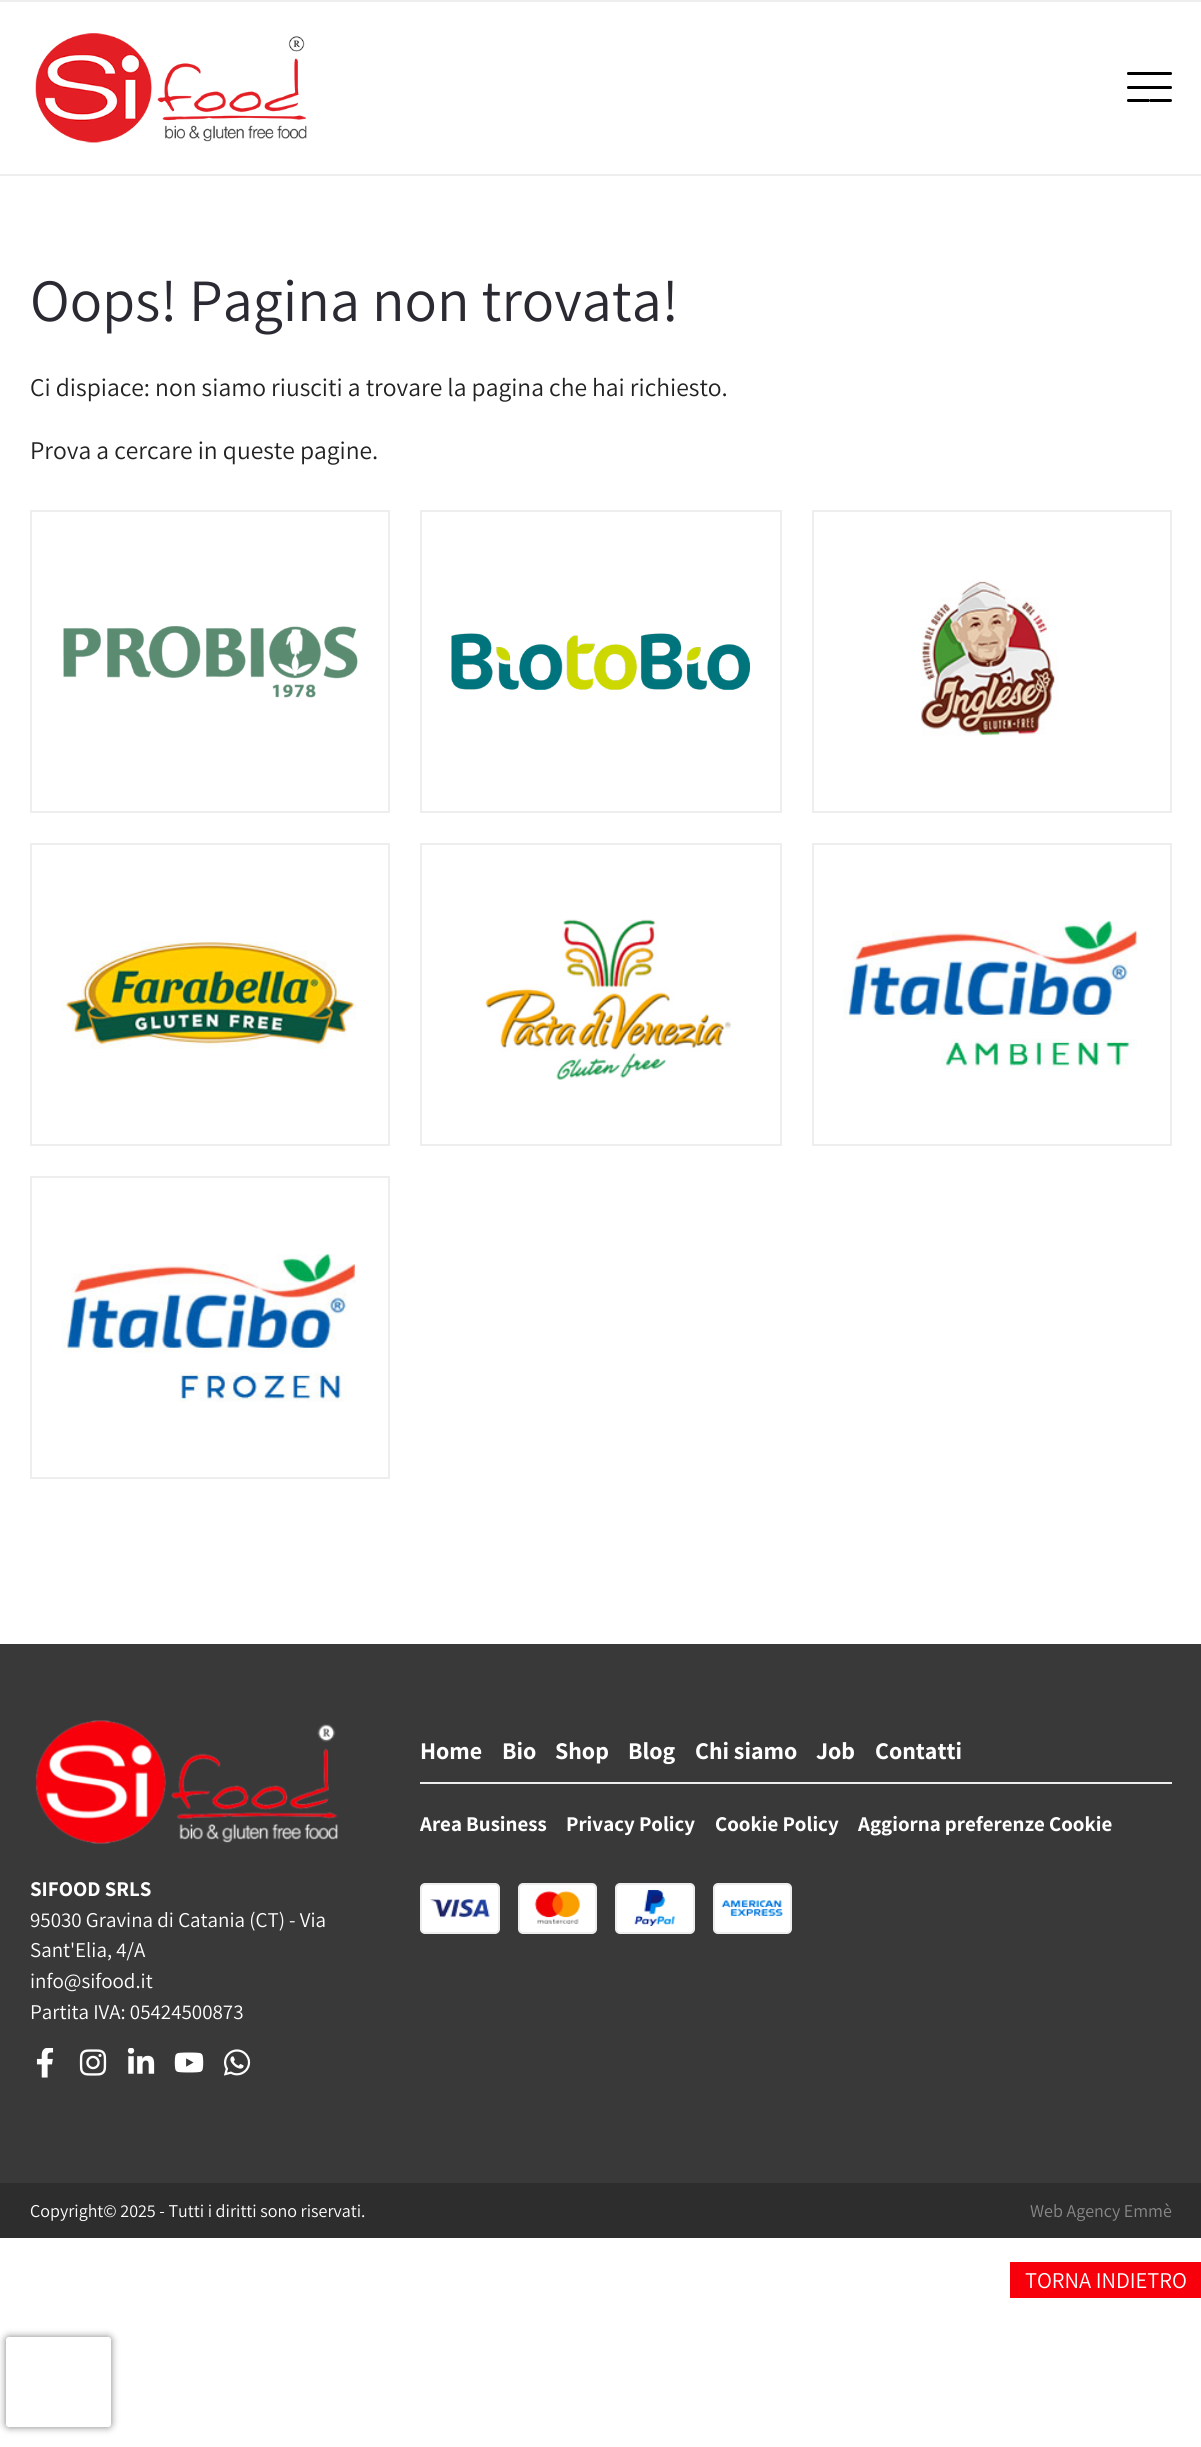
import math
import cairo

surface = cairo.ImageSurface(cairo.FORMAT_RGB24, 1201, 2447)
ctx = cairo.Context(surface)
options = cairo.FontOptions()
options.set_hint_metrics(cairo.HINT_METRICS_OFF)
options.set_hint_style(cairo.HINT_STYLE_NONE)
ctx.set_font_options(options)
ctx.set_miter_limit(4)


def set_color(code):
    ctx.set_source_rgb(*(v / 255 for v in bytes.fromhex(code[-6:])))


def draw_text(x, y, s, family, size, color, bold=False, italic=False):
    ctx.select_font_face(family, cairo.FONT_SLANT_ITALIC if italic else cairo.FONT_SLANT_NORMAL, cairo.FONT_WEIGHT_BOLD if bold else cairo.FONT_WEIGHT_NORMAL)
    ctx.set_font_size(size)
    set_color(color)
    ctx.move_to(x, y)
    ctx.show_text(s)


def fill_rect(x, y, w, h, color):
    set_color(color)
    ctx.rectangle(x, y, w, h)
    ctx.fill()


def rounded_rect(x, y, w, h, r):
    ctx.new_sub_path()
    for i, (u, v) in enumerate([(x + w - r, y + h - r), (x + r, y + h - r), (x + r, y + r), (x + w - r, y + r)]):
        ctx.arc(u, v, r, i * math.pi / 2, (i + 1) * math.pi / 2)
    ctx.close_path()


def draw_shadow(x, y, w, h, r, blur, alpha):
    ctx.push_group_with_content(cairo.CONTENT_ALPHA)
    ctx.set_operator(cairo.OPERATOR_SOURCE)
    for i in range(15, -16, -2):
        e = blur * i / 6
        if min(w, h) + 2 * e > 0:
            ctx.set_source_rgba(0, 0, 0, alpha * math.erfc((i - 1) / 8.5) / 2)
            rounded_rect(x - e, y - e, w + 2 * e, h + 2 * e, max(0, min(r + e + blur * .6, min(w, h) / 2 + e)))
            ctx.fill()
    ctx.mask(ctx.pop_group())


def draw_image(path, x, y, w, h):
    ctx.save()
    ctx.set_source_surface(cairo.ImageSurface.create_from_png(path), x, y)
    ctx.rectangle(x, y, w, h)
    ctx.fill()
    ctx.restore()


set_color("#ffffff")
ctx.paint()
fill_rect(0, 0, 1201, 2, "#eeeeee")
fill_rect(0, 174, 1201, 2, "#eeeeee")
draw_image("assets/img1.png", 35, 33, 272, 110)
set_color("#000000")
ctx.new_path()
ctx.move_to(1128.5, 72)
ctx.line_to(1149, 72)
ctx.line_to(1149, 75)
ctx.line_to(1128.5, 75)
ctx.curve_to(1127.5, 75, 1127, 74.5, 1127, 73.5)
ctx.curve_to(1127, 72.5, 1127.5, 72, 1128.5, 72)
ctx.close_path()
ctx.fill()
ctx.new_path()
ctx.move_to(1149, 72)
ctx.line_to(1170.5, 72)
ctx.curve_to(1171.5, 72, 1172, 72.5, 1172, 73.5)
ctx.curve_to(1172, 74.5, 1171.5, 75, 1170.5, 75)
ctx.line_to(1149, 75)
ctx.close_path()
ctx.fill()
ctx.new_path()
ctx.move_to(1128.5, 86)
ctx.line_to(1149, 86)
ctx.line_to(1149, 89)
ctx.line_to(1128.5, 89)
ctx.curve_to(1127.5, 89, 1127, 88.5, 1127, 87.5)
ctx.curve_to(1127, 86.5, 1127.5, 86, 1128.5, 86)
ctx.close_path()
ctx.fill()
ctx.new_path()
ctx.move_to(1149, 86)
ctx.line_to(1170.5, 86)
ctx.curve_to(1171.5, 86, 1172, 86.5, 1172, 87.5)
ctx.curve_to(1172, 88.5, 1171.5, 89, 1170.5, 89)
ctx.line_to(1149, 89)
ctx.close_path()
ctx.fill()
ctx.new_path()
ctx.move_to(1128.5, 99)
ctx.line_to(1149, 99)
ctx.line_to(1149, 102)
ctx.line_to(1128.5, 102)
ctx.curve_to(1127.5, 102, 1127, 101.5, 1127, 100.5)
ctx.curve_to(1127, 99.5, 1127.5, 99, 1128.5, 99)
ctx.close_path()
ctx.fill()
rounded_rect(1149, 99, 23, 3, 1.5)
ctx.fill()
draw_text(30, 321, "Oops! Pagina non trovata!", "Assistant", 60, "#2b2a33")
draw_text(30, 396, "Ci dispiace: non siamo riusciti a trovare la pagina che hai richiesto.", "Assistant", 25.5, "#222222")
draw_text(30, 459, "Prova a cercare in queste pagine.", "Assistant", 25.5, "#222222")
ctx.rectangle(31, 511, 358, 301)
set_color("#eeeeee")
ctx.stroke()
draw_image("assets/img2.png", 63, 626, 295, 72)
ctx.rectangle(421, 511, 360, 301)
ctx.stroke()
draw_image("assets/img3.png", 451, 633, 299, 57)
ctx.rectangle(813, 511, 358, 301)
ctx.stroke()
draw_image("assets/img4.png", 921, 580, 138, 156)
ctx.rectangle(31, 844, 358, 301)
ctx.stroke()
draw_image("assets/img5.png", 61, 941, 295, 108)
ctx.rectangle(421, 844, 360, 301)
ctx.stroke()
draw_image("assets/img6.png", 485, 919, 247, 161)
ctx.rectangle(813, 844, 358, 301)
ctx.stroke()
draw_image("assets/img7.png", 843, 921, 295, 148)
ctx.rectangle(31, 1177, 358, 301)
ctx.stroke()
draw_image("assets/img8.png", 61, 1254, 295, 148)
fill_rect(0, 1644, 1201, 539, "#393939")
draw_text(420, 1759, "Home", "Assistant", 24, "#ffffff", bold=True)
draw_text(502, 1759, "Bio", "Assistant", 24, "#ffffff", bold=True)
draw_text(555, 1759, "Shop", "Assistant", 24, "#ffffff", bold=True)
draw_text(628, 1759, "Blog", "Assistant", 24, "#ffffff", bold=True)
draw_text(695, 1759, "Chi siamo", "Assistant", 24, "#ffffff", bold=True)
draw_text(816, 1759, "Job", "Assistant", 24, "#ffffff", bold=True)
draw_text(875, 1759, "Contatti", "Assistant", 24, "#ffffff", bold=True)
fill_rect(420, 1782, 752, 2, "#eeeeee")
draw_text(420, 1831, "Area Business", "Assistant", 21, "#ffffff", bold=True)
draw_text(566, 1831, "Privacy Policy", "Assistant", 21, "#ffffff", bold=True)
draw_text(715, 1831, "Cookie Policy", "Assistant", 21, "#ffffff", bold=True)
draw_text(858, 1831, "Aggiorna preferenze Cookie", "Assistant", 21, "#ffffff", bold=True)
rounded_rect(421, 1884, 78, 49, 4)
ctx.fill_preserve()
set_color("#eeeeee")
ctx.stroke()
draw_image("assets/img9.png", 430, 1899, 60, 19)
set_color("#ffffff")
rounded_rect(519, 1884, 77, 49, 4)
ctx.fill_preserve()
set_color("#eeeeee")
ctx.stroke()
draw_image("assets/img10.png", 534, 1891, 47, 33)
set_color("#ffffff")
rounded_rect(616, 1884, 78, 49, 4)
ctx.fill_preserve()
set_color("#eeeeee")
ctx.stroke()
draw_image("assets/img11.png", 634, 1890, 41, 36)
set_color("#ffffff")
rounded_rect(714, 1884, 77, 49, 4)
ctx.fill_preserve()
set_color("#eeeeee")
ctx.stroke()
draw_image("assets/img12.png", 721, 1900, 62, 16)
draw_image("assets/img13.png", 35, 1720, 304, 124)
draw_text(30, 1896, "SIFOOD SRLS", "Assistant", 21, "#ffffff", bold=True)
draw_text(30, 1927, "95030 Gravina di Catania (CT) - Via", "Assistant", 21, "#ffffff")
draw_text(30, 1957, "Sant'Elia, 4/A", "Assistant", 21, "#ffffff")
draw_text(30, 1988, "info@sifood.it", "Assistant", 21, "#ffffff")
draw_text(30, 2019, "Partita IVA: 05424500873", "Assistant", 21, "#ffffff")
draw_image("assets/img14.png", 36, 2048, 18, 30)
draw_image("assets/img15.png", 79, 2049, 28, 27)
draw_image("assets/img16.png", 127, 2048, 28, 26)
draw_image("assets/img17.png", 174, 2052, 30, 21)
draw_image("assets/img18.png", 223, 2049, 28, 27)
fill_rect(0, 2183, 1201, 55, "#2d2d2d")
draw_text(30, 2217, "Copyright© 2025 - Tutti i diritti sono riservati.", "Assistant", 18, "#ffffff")
draw_text(1030, 2217, "Web Agency Emmè", "Assistant", 18, "#888888")
fill_rect(1010, 2262, 191, 36, "#f8000b")
draw_text(1025, 2288, "TORNA INDIETRO", "Assistant", 22.5, "#ffffff")
ctx.save()
ctx.set_fill_rule(cairo.FILL_RULE_EVEN_ODD)
ctx.new_path()
ctx.move_to(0, 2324)
ctx.line_to(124, 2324)
ctx.line_to(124, 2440)
ctx.line_to(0, 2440)
ctx.close_path()
ctx.move_to(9, 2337)
ctx.line_to(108, 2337)
ctx.curve_to(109.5, 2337, 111, 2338.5, 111, 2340)
ctx.line_to(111, 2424)
ctx.curve_to(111, 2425.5, 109.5, 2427, 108, 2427)
ctx.line_to(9, 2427)
ctx.curve_to(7.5, 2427, 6, 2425.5, 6, 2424)
ctx.line_to(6, 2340)
ctx.curve_to(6, 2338.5, 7.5, 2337, 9, 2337)
ctx.close_path()
ctx.clip()
set_color("#808080")
draw_shadow(6, 2337, 105, 90, 3, 4, 1)
ctx.restore()
surface.write_to_png("output.png")
